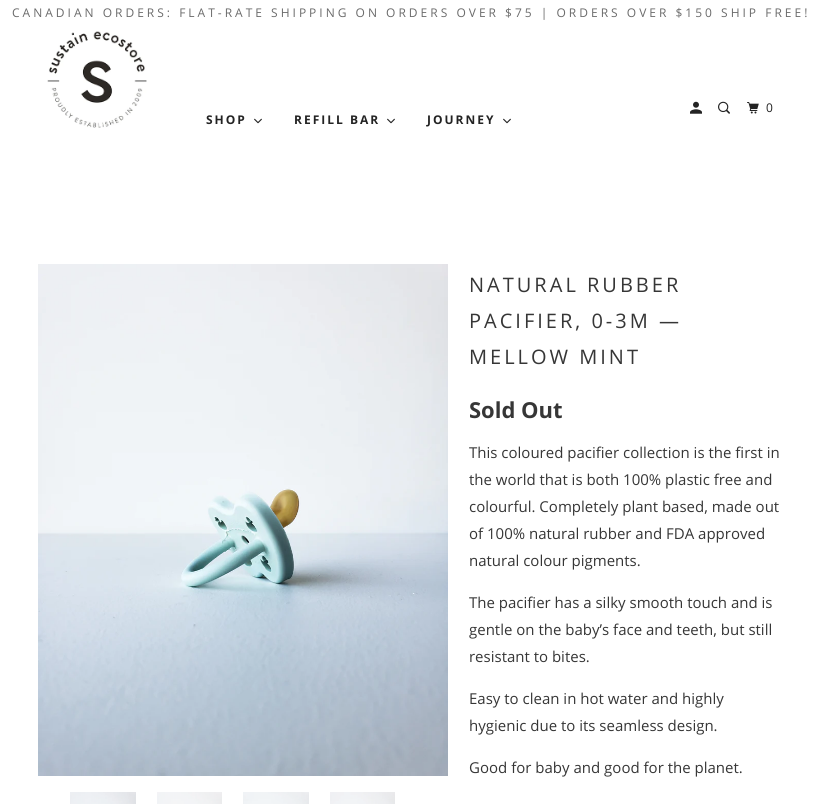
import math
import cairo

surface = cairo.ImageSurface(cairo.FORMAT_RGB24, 822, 804)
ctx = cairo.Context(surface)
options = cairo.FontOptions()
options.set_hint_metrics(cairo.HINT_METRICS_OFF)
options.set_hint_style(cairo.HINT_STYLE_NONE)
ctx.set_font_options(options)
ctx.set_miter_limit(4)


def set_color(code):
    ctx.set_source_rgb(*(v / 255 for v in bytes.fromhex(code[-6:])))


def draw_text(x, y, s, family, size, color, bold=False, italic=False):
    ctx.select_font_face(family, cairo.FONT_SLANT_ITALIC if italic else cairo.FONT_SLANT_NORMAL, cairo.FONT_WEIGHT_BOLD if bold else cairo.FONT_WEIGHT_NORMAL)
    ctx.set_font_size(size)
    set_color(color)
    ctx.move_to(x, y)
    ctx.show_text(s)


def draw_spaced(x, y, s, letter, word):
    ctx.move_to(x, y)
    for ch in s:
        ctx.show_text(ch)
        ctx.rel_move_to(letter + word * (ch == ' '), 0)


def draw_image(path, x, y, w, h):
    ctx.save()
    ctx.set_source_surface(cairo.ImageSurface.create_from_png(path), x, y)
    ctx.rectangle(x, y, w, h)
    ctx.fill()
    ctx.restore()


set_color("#ffffff")
ctx.paint()
ctx.select_font_face("Open Sans")
ctx.set_font_size(12)
set_color("#6b6b6b")
draw_spaced(12, 17, "CANADIAN ORDERS: FLAT-RATE SHIPPING ON ORDERS OVER $75 | ORDERS OVER $150 SHIP FREE!", 3, 0)
draw_image("assets/img1.png", 47, 31, 100, 97)
draw_image("assets/img2.png", 690, 101, 12, 13)
draw_image("assets/img3.png", 718, 101, 12, 13)
draw_image("assets/img4.png", 747, 102, 12, 12)
set_color("#232323")
draw_spaced(766, 112, "0", 2, 0)
ctx.select_font_face("Open Sans", cairo.FONT_SLANT_NORMAL, cairo.FONT_WEIGHT_BOLD)
draw_spaced(206, 124, "SHOP", 2, 0)
draw_image("assets/img5.png", 254, 118, 8, 6)
draw_spaced(294, 124, "REFILL BAR", 2, 0)
draw_image("assets/img5.png", 387, 118, 8, 6)
draw_spaced(427, 124, "JOURNEY", 2, 0)
draw_image("assets/img5.png", 503, 118, 8, 6)
draw_image("assets/img6.png", 38, 264, 410, 512)
draw_image("assets/img7.png", 70, 792, 66, 12)
draw_image("assets/img8.png", 157, 792, 65, 12)
draw_image("assets/img9.png", 243, 792, 66, 12)
draw_image("assets/img10.png", 330, 792, 65, 12)
ctx.select_font_face("Open Sans")
ctx.set_font_size(20)
set_color("#363636")
draw_spaced(469, 292, "NATURAL RUBBER", 3, 0)
draw_spaced(469, 328, "PACIFIER, 0-3M —", 3, 0)
draw_spaced(469, 364, "MELLOW MINT", 3, 0)
draw_text(469, 418, "Sold Out", "Open Sans", 22, "#363636", bold=True)
draw_text(469, 458, "This coloured pacifier collection is the first in", "Open Sans", 15, "#363636")
draw_text(469, 485, "the world that is both 100% plastic free and", "Open Sans", 15, "#363636")
draw_text(469, 512, "colourful. Completely plant based, made out", "Open Sans", 15, "#363636")
draw_text(469, 539, "of 100% natural rubber and FDA approved", "Open Sans", 15, "#363636")
draw_text(469, 566, "natural colour pigments.", "Open Sans", 15, "#363636")
draw_text(469, 608, "The pacifier has a silky smooth touch and is", "Open Sans", 15, "#363636")
draw_text(469, 635, "gentle on the baby’s face and teeth, but still", "Open Sans", 15, "#363636")
draw_text(469, 662, "resistant to bites.", "Open Sans", 15, "#363636")
draw_text(469, 704, "Easy to clean in hot water and highly", "Open Sans", 15, "#363636")
draw_text(469, 731, "hygienic due to its seamless design.", "Open Sans", 15, "#363636")
draw_text(469, 773, "Good for baby and good for the planet.", "Open Sans", 15, "#363636")
surface.write_to_png("output.png")
